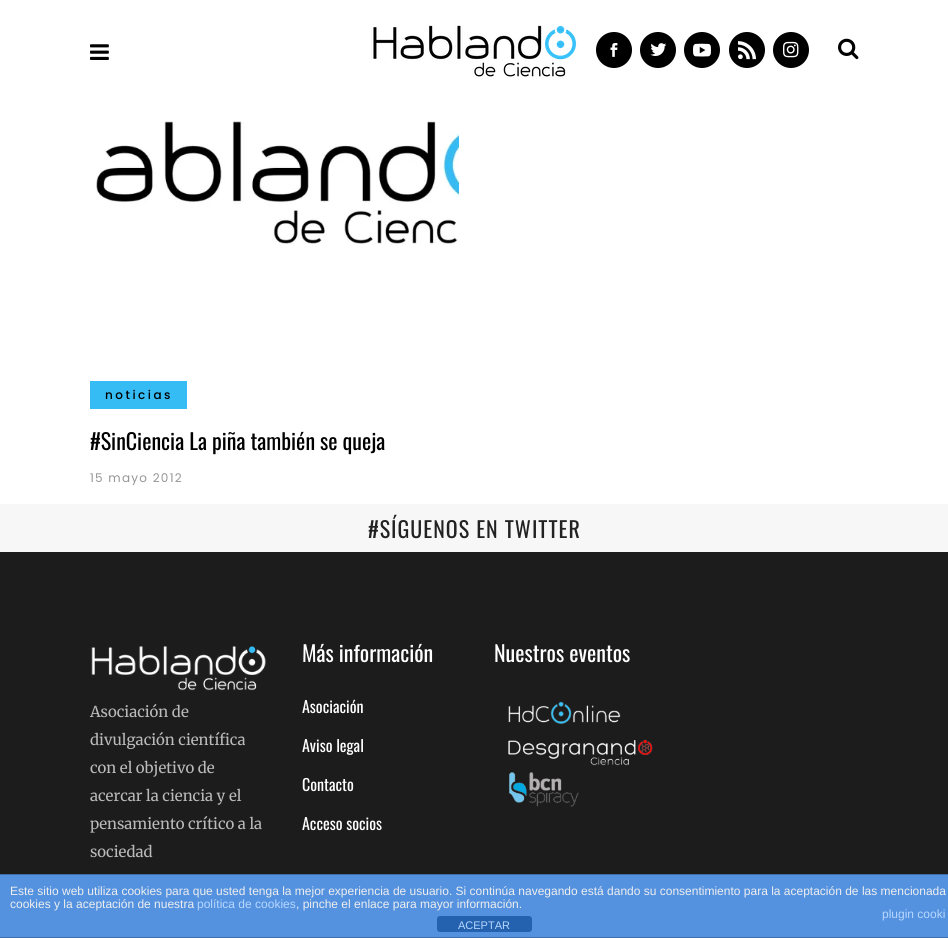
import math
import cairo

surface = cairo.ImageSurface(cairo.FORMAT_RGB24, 948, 938)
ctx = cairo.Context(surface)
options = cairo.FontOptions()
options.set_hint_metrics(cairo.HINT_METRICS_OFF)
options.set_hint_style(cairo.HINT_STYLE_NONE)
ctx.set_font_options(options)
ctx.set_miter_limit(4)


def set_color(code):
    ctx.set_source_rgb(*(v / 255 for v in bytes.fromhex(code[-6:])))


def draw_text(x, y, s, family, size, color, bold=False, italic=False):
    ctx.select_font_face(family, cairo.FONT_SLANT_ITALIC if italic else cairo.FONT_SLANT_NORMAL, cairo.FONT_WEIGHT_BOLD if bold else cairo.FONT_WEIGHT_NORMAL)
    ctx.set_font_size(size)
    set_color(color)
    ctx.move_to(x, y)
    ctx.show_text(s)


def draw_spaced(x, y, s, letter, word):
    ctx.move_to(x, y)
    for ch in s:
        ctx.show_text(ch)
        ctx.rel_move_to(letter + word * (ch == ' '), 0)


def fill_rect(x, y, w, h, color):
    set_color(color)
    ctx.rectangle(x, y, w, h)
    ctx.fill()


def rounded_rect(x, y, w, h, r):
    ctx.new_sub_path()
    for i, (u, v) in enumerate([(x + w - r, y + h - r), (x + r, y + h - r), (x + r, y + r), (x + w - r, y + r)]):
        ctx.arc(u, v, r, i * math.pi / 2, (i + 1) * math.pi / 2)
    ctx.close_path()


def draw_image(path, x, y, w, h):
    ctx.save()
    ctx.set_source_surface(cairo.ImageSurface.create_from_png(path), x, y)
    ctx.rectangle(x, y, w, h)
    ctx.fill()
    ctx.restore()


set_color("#ffffff")
ctx.paint()
draw_image("assets/img1.png", 90, 44, 19, 16)
draw_image("assets/img2.png", 371, 25, 206, 53)
set_color("#000000")
ctx.arc(614, 50, 18, 0, 2 * math.pi)
ctx.fill()
draw_image("assets/img3.png", 610, 43, 8, 14)
ctx.arc(658, 50, 18, 0, 2 * math.pi)
ctx.fill()
draw_image("assets/img4.png", 650, 43, 17, 13)
ctx.arc(702, 50, 18, 0, 2 * math.pi)
ctx.fill()
draw_image("assets/img5.png", 693, 43, 18, 14)
ctx.arc(747, 50, 18, 0, 2 * math.pi)
ctx.fill()
draw_image("assets/img6.png", 738, 41, 18, 19)
ctx.arc(791, 50, 18, 0, 2 * math.pi)
ctx.fill()
draw_image("assets/img7.png", 783, 41, 16, 17)
draw_image("assets/img8.png", 838, 38, 21, 22)
draw_image("assets/img9.png", 96, 121, 363, 124)
fill_rect(90, 381, 97, 28, "#35bcf5")
ctx.select_font_face("Poppins Medium")
ctx.set_font_size(12)
set_color("#000000")
draw_spaced(105, 399, "noticias", 2.5, 0)
draw_text(90, 450, "#SinCiencia La piña también se queja", "Oswald", 22, "#000000")
ctx.select_font_face("Poppins")
ctx.set_font_size(12)
set_color("#959595")
draw_spaced(90, 482, "15 mayo 2012", 1.25, 0)
fill_rect(0, 504, 948, 48, "#f7f7f7")
ctx.select_font_face("Oswald")
ctx.set_font_size(22)
set_color("#222222")
draw_spaced(368, 538, "#SÍGUENOS EN TWITTER", 1, 0)
fill_rect(0, 552, 948, 322, "#1c1c1c")
draw_text(302, 662, "Más información", "Oswald", 22, "#ffffff")
draw_text(302, 713, "Asociación", "Oswald", 16, "#ffffff")
draw_text(302, 752, "Aviso legal", "Oswald", 16, "#ffffff")
draw_text(302, 791, "Contacto", "Oswald", 16, "#ffffff")
draw_text(302, 830, "Acceso socios", "Oswald", 16, "#ffffff")
draw_text(494, 662, "Nuestros eventos", "Oswald", 22, "#ffffff")
draw_image("assets/img10.png", 508, 701, 113, 23)
draw_image("assets/img11.png", 508, 739, 145, 27)
draw_image("assets/img12.png", 509, 772, 70, 35)
draw_image("assets/img13.png", 91, 646, 175, 45)
draw_text(90, 717, "Asociación de", "Merriweather", 15, "#bababa")
draw_text(90, 745, "divulgación científica", "Merriweather", 15, "#bababa")
draw_text(90, 773, "con el objetivo de", "Merriweather", 15, "#bababa")
draw_text(90, 801, "acercar la ciencia y el", "Merriweather", 15, "#bababa")
draw_text(90, 829, "pensamiento crítico a la", "Merriweather", 15, "#bababa")
draw_text(90, 857, "sociedad", "Merriweather", 15, "#bababa")
fill_rect(0, 875, 948, 62, "#5492e0")
fill_rect(0, 874, 948, 1, "#3f6da7")
fill_rect(0, 937, 948, 1, "#3f6da7")
draw_text(10, 895, "Este sitio web utiliza cookies para que usted tenga la mejor experiencia de usuario. Si continúa navegando está dando su consentimiento para la aceptación de las mencionada", "Liberation Sans", 12, "#eeeeee")
draw_text(10, 908, "cookies y la aceptación de nuestra", "Liberation Sans", 12, "#eeeeee")
draw_text(197, 908, "política de cookies", "Liberation Sans", 12, "#b7d7ff")
draw_text(296, 908, ", pinche el enlace para mayor información.", "Liberation Sans", 12, "#eeeeee")
draw_text(882, 918, "plugin cooki", "Liberation Sans", 12, "#b7d7ff")
set_color("#2462b0")
rounded_rect(437, 916, 95, 16, 3)
ctx.fill()
draw_text(458, 929, "ACEPTAR", "Liberation Sans", 11, "#b7d7ff")
surface.write_to_png("output.png")
